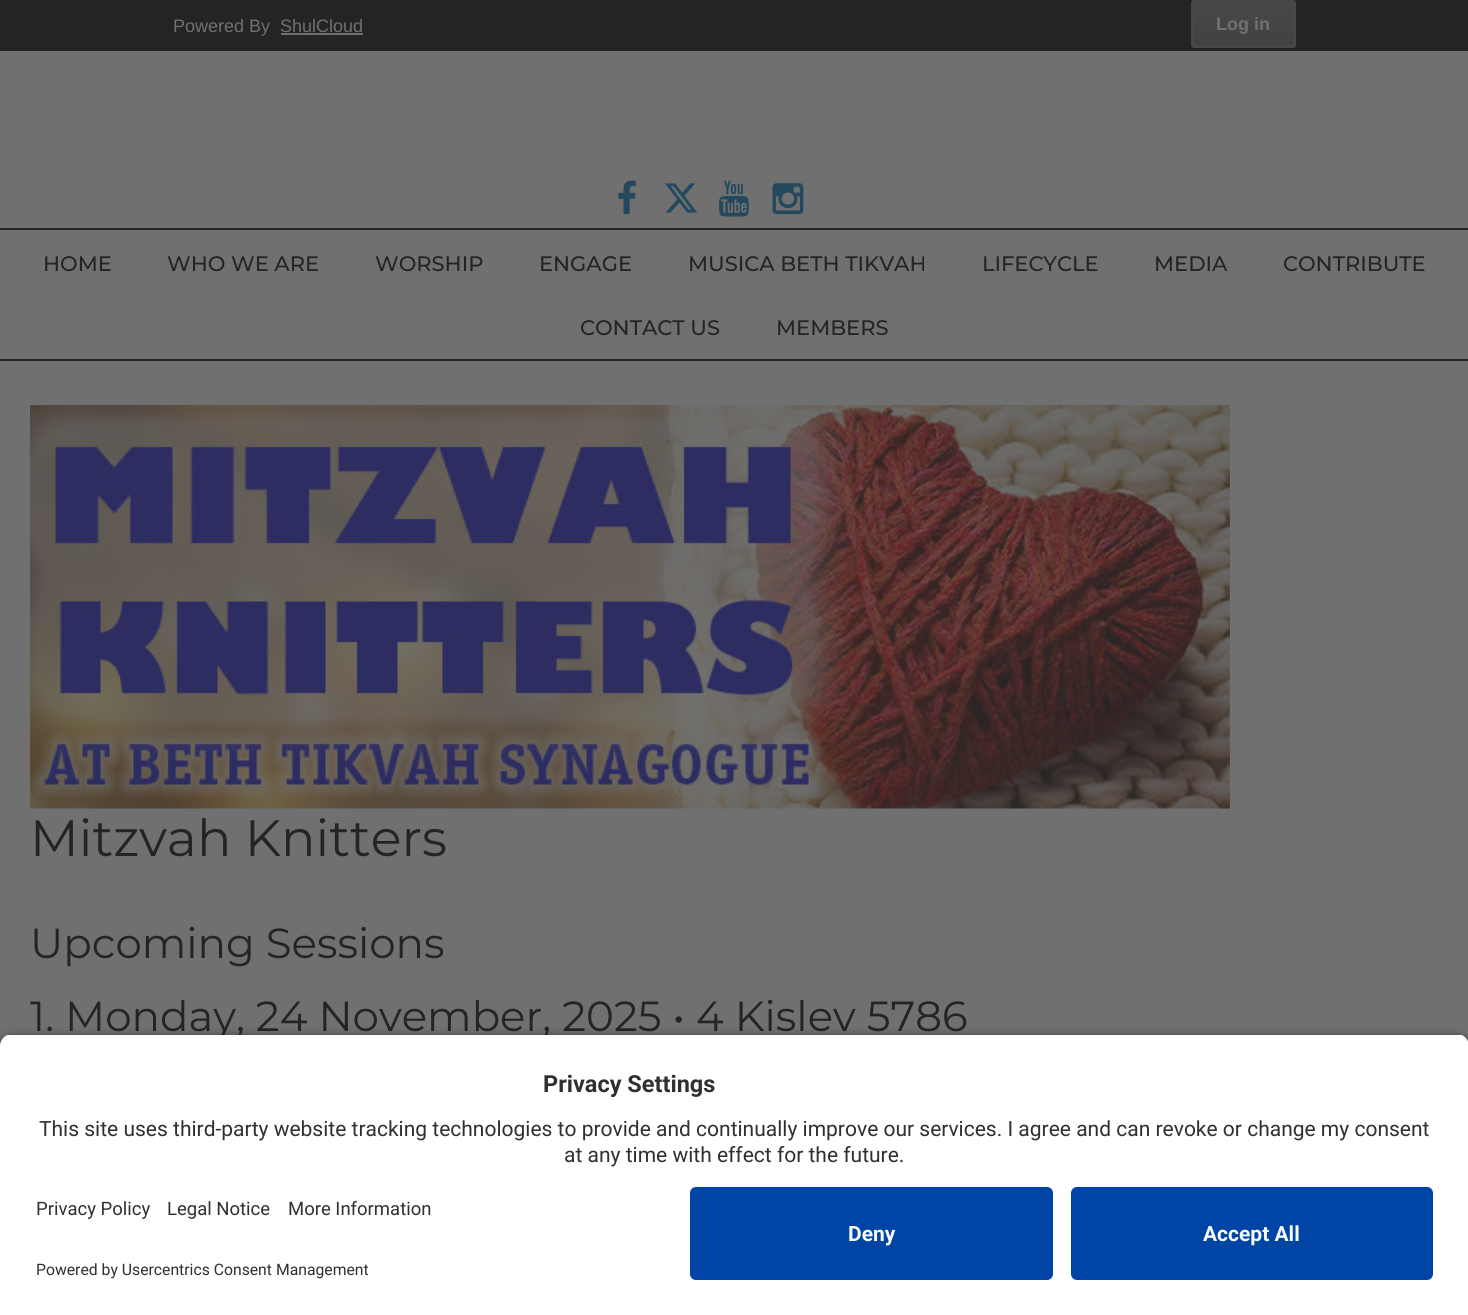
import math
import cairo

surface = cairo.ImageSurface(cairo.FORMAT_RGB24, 1468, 1315)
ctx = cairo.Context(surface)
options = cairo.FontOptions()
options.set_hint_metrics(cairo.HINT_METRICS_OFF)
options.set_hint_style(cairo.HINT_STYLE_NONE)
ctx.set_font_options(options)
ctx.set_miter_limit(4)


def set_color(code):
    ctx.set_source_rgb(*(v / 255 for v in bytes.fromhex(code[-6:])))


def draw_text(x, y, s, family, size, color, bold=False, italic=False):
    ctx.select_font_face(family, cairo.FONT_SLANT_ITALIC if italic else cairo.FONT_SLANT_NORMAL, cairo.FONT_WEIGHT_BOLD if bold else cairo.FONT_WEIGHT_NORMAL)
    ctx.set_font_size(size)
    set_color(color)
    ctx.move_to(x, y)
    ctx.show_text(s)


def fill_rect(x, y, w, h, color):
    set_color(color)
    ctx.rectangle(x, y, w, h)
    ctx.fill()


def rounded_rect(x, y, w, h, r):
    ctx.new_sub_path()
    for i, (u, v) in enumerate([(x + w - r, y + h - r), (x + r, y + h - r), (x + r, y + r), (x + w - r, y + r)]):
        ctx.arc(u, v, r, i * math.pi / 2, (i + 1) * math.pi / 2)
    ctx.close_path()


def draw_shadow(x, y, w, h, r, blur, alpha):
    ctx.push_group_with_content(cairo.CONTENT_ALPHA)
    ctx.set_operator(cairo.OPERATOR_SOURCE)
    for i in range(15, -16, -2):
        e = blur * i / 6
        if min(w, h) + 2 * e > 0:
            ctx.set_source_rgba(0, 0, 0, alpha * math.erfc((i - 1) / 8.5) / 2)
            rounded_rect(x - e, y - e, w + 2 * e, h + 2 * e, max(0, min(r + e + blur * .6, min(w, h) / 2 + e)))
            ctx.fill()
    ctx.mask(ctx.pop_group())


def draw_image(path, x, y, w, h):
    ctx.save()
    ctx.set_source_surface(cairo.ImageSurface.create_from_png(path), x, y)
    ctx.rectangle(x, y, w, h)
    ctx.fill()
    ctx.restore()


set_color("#707070")
ctx.paint()
fill_rect(0, 0, 1468, 51, "#242424")
draw_text(173, 32, "Powered By", "Liberation Sans", 18, "#707070")
draw_text(280, 32, "ShulCloud", "Liberation Sans", 18, "#707070")
fill_rect(281, 33, 82, 2, "#707070")
gradient = cairo.LinearGradient(1244, 3, 1244, 45)
gradient.add_color_stop_rgba(0.05, 0.275, 0.282, 0.282, 1)
gradient.add_color_stop_rgba(1, 0.251, 0.259, 0.263, 1)
ctx.set_source(gradient)
ctx.rectangle(1194, 3, 99, 42)
ctx.fill()
rounded_rect(1192.5, 1.5, 102, 45, 1.5)
set_color("#46484a")
ctx.set_line_width(3)
ctx.stroke()
draw_text(1216, 30, "Log in", "Liberation Sans", 18, "#707070", bold=True)
draw_image("assets/img1.png", 618, 180, 18, 35)
draw_image("assets/img2.png", 665, 183, 33, 30)
draw_image("assets/img3.png", 719, 180, 30, 37)
draw_image("assets/img4.png", 772, 183, 32, 32)
fill_rect(0, 228, 1468, 2, "#242424")
fill_rect(0, 359, 1468, 2, "#242424")
draw_text(43, 271, "HOME", "Montserrat Medium", 21, "#242424")
draw_text(167, 271, "WHO WE ARE", "Montserrat Medium", 21, "#242424")
draw_text(375, 271, "WORSHIP", "Montserrat Medium", 21, "#242424")
draw_text(539, 271, "ENGAGE", "Montserrat Medium", 21, "#242424")
draw_text(688, 271, "MUSICA BETH TIKVAH", "Montserrat Medium", 21, "#242424")
draw_text(982, 271, "LIFECYCLE", "Montserrat Medium", 21, "#242424")
draw_text(1154, 271, "MEDIA", "Montserrat Medium", 21, "#242424")
draw_text(1283, 271, "CONTRIBUTE", "Montserrat Medium", 21, "#242424")
draw_text(580, 335, "CONTACT US", "Montserrat Medium", 21, "#242424")
draw_text(776, 335, "MEMBERS", "Montserrat Medium", 21, "#242424")
draw_image("assets/img5.png", 30, 405, 1200, 404)
draw_text(30, 856, "Mitzvah Knitters", "Montserrat", 51, "#242424")
draw_text(30, 958, "Upcoming Sessions", "Montserrat", 42, "#242424")
draw_text(30, 1031, "1. Monday, 24 November, 2025 • 4 Kislev 5786", "Montserrat", 42, "#242424")
set_color("#000000")
draw_shadow(0, 1038, 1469, 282, 12, 5, 0.8)
ctx.save()
ctx.new_path()
ctx.move_to(12, 1034)
ctx.line_to(1457, 1034)
ctx.curve_to(1463.5, 1034, 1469, 1039.5, 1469, 1046)
ctx.line_to(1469, 1175)
ctx.line_to(0, 1175)
ctx.line_to(0, 1046)
ctx.curve_to(0, 1039.5, 5.5, 1034, 12, 1034)
ctx.close_path()
ctx.clip()
fill_rect(0, 1035, 1468, 140, "#ffffff")
ctx.restore()
draw_text(543, 1092, "Privacy Settings", "Roboto", 23.5, "#303030", bold=True)
draw_text(39, 1136, "This site uses third-party website tracking technologies to provide and continually improve our services. I agree and can revoke or change my consent", "Roboto", 21, "#303030")
draw_text(564, 1162, "at any time with effect for the future.", "Roboto", 21, "#303030")
fill_rect(0, 1175, 1468, 140, "#ffffff")
draw_text(36, 1215, "Privacy Policy", "Roboto", 18.5, "#303030")
draw_text(167, 1215, "Legal Notice", "Roboto", 18.5, "#303030")
draw_text(288, 1215, "More Information", "Roboto", 18.5, "#303030")
draw_text(36, 1275, "Powered by Usercentrics Consent Management", "Roboto", 15.75, "#303030")
set_color("#0045a5")
rounded_rect(690, 1187, 363, 93, 6)
ctx.fill()
draw_text(848, 1241, "Deny", "Roboto", 21, "#fafafa", bold=True)
set_color("#0045a5")
rounded_rect(1071, 1187, 362, 93, 6)
ctx.fill()
draw_text(1203, 1241, "Accept All", "Roboto", 21, "#fafafa", bold=True)
surface.write_to_png("output.png")
